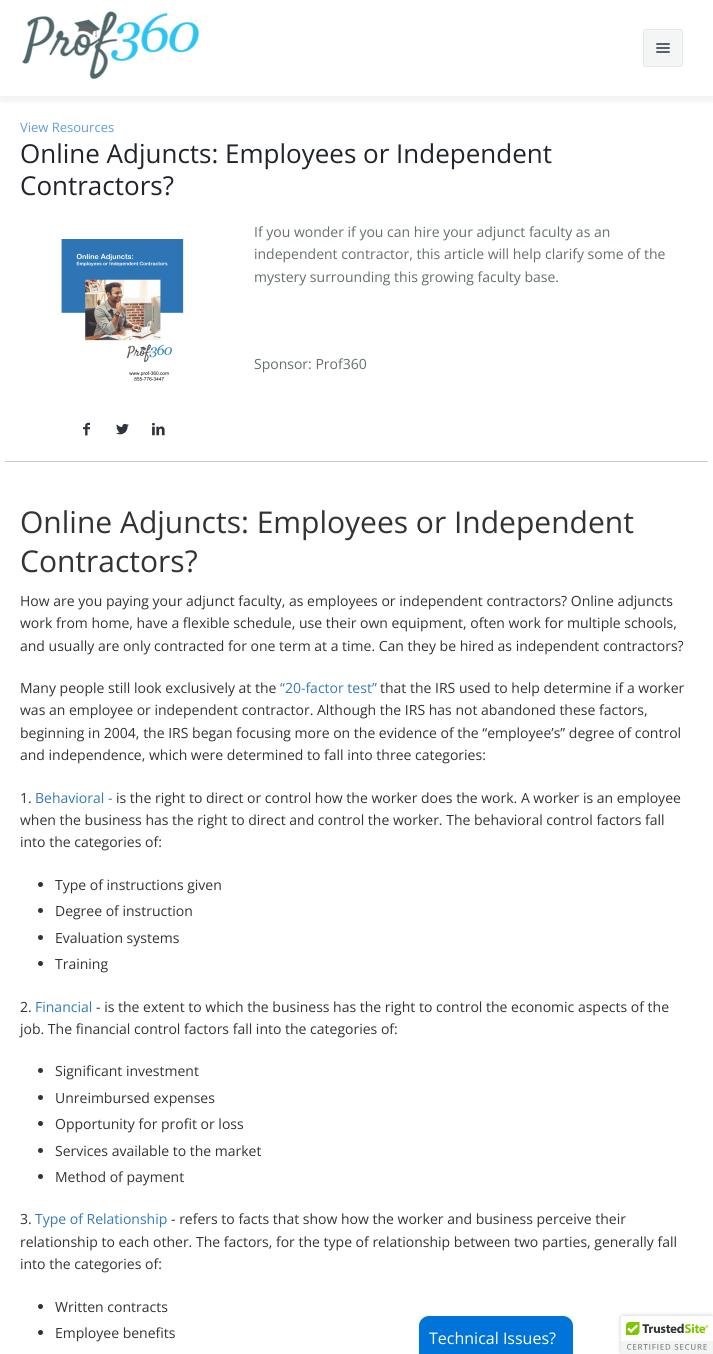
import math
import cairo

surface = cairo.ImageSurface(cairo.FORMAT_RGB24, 713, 1354)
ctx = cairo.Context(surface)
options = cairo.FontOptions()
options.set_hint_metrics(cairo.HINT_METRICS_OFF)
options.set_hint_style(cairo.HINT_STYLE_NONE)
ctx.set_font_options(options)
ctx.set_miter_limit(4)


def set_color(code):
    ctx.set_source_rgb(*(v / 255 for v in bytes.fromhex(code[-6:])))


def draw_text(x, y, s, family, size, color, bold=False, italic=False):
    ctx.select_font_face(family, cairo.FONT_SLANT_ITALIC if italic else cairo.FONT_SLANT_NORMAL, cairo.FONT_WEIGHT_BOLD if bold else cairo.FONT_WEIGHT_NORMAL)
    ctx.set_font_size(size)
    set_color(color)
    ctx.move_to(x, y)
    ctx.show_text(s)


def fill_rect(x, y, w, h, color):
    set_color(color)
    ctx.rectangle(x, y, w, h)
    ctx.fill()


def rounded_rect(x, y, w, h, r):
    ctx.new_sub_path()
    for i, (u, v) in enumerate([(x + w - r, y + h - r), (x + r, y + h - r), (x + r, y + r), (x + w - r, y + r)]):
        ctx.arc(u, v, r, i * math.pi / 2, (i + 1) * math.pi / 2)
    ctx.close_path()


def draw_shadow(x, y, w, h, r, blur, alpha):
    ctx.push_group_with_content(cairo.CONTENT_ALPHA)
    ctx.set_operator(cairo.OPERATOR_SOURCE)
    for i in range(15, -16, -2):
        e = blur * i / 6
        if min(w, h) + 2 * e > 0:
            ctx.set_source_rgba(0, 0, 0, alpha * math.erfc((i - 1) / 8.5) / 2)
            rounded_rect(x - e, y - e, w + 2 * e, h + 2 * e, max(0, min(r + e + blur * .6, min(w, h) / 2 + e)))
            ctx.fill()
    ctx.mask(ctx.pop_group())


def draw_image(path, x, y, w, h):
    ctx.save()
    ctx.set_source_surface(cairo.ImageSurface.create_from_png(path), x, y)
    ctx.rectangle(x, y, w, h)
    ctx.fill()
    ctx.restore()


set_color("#ffffff")
ctx.paint()
ctx.save()
ctx.rectangle(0, 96, 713, 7)
ctx.clip()
set_color("#000000")
draw_shadow(0, 1, 713, 96, 0, 7.5, 0.1)
ctx.restore()
draw_image("assets/img1.png", 22, 11, 177, 68)
set_color("#f4f6f6")
rounded_rect(643, 29, 40, 38, 3)
ctx.fill()
set_color("#f8fafa")
ctx.set_fill_rule(cairo.FILL_RULE_EVEN_ODD)
ctx.new_path()
ctx.move_to(646, 31)
ctx.line_to(680, 31)
ctx.line_to(682, 33)
ctx.line_to(682, 32)
ctx.curve_to(682, 31, 681, 30, 680, 30)
ctx.line_to(646, 30)
ctx.curve_to(645, 30, 644, 31, 644, 32)
ctx.close_path()
ctx.move_to(682, 60)
ctx.line_to(681.5, 65)
ctx.curve_to(682.5, 63.5, 682, 61.5, 682, 60)
ctx.close_path()
ctx.fill()
rounded_rect(643.5, 29.5, 39, 37, 2.5)
set_color("#e3e9e9")
ctx.set_line_width(1)
ctx.stroke()
draw_image("assets/img2.png", 656, 43, 14, 10)
draw_text(20, 132, "View Resources", "Open Sans", 13, "#609ddb")
draw_text(20, 163, "Online Adjuncts: Employees or Independent", "Open Sans", 26, "#21252b")
draw_text(20, 195, "Contractors?", "Open Sans", 26, "#21252b")
fill_rect(5, 461, 703, 1, "#cccccc")
draw_image("assets/img3.png", 61, 239, 123, 142)
draw_image("assets/img4.png", 83, 422, 7, 14)
draw_image("assets/img5.png", 116, 423, 13, 12)
draw_image("assets/img6.png", 152, 422, 13, 14)
draw_text(254, 237, "If you wonder if you can hire your adjunct faculty as an", "Open Sans", 14, "#666e70")
draw_text(254, 259, "independent contractor, this article will help clarify some of the", "Open Sans", 14, "#666e70")
draw_text(254, 282, "mystery surrounding this growing faculty base.", "Open Sans", 14, "#666e70")
draw_text(254, 369, "Sponsor: Prof360", "Open Sans", 14, "#666e70")
draw_text(20, 533, "Online Adjuncts: Employees or Independent", "Open Sans", 30, "#333333")
draw_text(20, 572, "Contractors?", "Open Sans", 30, "#333333")
draw_text(20, 606, "How are you paying your adjunct faculty, as employees or independent contractors? Online adjuncts", "Open Sans", 14, "#333333")
draw_text(20, 628, "work from home, have a flexible schedule, use their own equipment, often work for multiple schools,", "Open Sans", 14, "#333333")
draw_text(20, 651, "and usually are only contracted for one term at a time. Can they be hired as independent contractors?", "Open Sans", 14, "#333333")
draw_text(20, 693, "Many people still look exclusively at the", "Open Sans", 14, "#333333")
draw_text(280, 693, "“20-factor test”", "Open Sans", 14, "#337ab7")
draw_text(380, 693, "that the IRS used to help determine if a worker", "Open Sans", 14, "#333333")
draw_text(20, 715, "was an employee or independent contractor. Although the IRS has not abandoned these factors,", "Open Sans", 14, "#333333")
draw_text(20, 738, "beginning in 2004, the IRS began focusing more on the evidence of the “employee’s” degree of control", "Open Sans", 14, "#333333")
draw_text(20, 760, "and independence, which were determined to fall into three categories:", "Open Sans", 14, "#333333")
draw_text(20, 803, "1.", "Open Sans", 14, "#333333")
draw_text(35, 803, "Behavioral -", "Open Sans", 14, "#337ab7")
draw_text(116, 803, "is the right to direct or control how the worker does the work. A worker is an employee", "Open Sans", 14, "#333333")
draw_text(20, 825, "when the business has the right to direct and control the worker. The behavioral control factors fall", "Open Sans", 14, "#333333")
draw_text(20, 847, "into the categories of:", "Open Sans", 14, "#333333")
ctx.new_path()
ctx.arc(40.5, 884.5, 2.5, 0, 2 * math.pi)
ctx.fill()
draw_text(55, 890, "Type of instructions given", "Open Sans", 14, "#333333")
ctx.new_path()
ctx.arc(40.5, 910.5, 2.5, 0, 2 * math.pi)
ctx.fill()
draw_text(55, 916, "Degree of instruction", "Open Sans", 14, "#333333")
ctx.new_path()
ctx.arc(40.5, 937.5, 2.5, 0, 2 * math.pi)
ctx.fill()
draw_text(55, 943, "Evaluation systems", "Open Sans", 14, "#333333")
ctx.new_path()
ctx.arc(40.5, 963.5, 2.5, 0, 2 * math.pi)
ctx.fill()
draw_text(55, 969, "Training", "Open Sans", 14, "#333333")
draw_text(20, 1012, "2.", "Open Sans", 14, "#333333")
draw_text(35, 1012, "Financial", "Open Sans", 14, "#337ab7")
draw_text(96, 1012, "- is the extent to which the business has the right to control the economic aspects of the", "Open Sans", 14, "#333333")
draw_text(20, 1034, "job. The financial control factors fall into the categories of:", "Open Sans", 14, "#333333")
ctx.new_path()
ctx.arc(40.5, 1070.5, 2.5, 0, 2 * math.pi)
ctx.fill()
draw_text(55, 1076, "Significant investment", "Open Sans", 14, "#333333")
ctx.new_path()
ctx.arc(40.5, 1097.5, 2.5, 0, 2 * math.pi)
ctx.fill()
draw_text(55, 1103, "Unreimbursed expenses", "Open Sans", 14, "#333333")
ctx.new_path()
ctx.arc(40.5, 1123.5, 2.5, 0, 2 * math.pi)
ctx.fill()
draw_text(55, 1129, "Opportunity for profit or loss", "Open Sans", 14, "#333333")
ctx.new_path()
ctx.arc(40.5, 1150.5, 2.5, 0, 2 * math.pi)
ctx.fill()
draw_text(55, 1156, "Services available to the market", "Open Sans", 14, "#333333")
ctx.new_path()
ctx.arc(40.5, 1176.5, 2.5, 0, 2 * math.pi)
ctx.fill()
draw_text(55, 1182, "Method of payment", "Open Sans", 14, "#333333")
draw_text(20, 1224, "3.", "Open Sans", 14, "#333333")
draw_text(35, 1224, "Type of Relationship", "Open Sans", 14, "#337ab7")
draw_text(171, 1224, "- refers to facts that show how the worker and business perceive their", "Open Sans", 14, "#333333")
draw_text(20, 1247, "relationship to each other. The factors, for the type of relationship between two parties, generally fall", "Open Sans", 14, "#333333")
draw_text(20, 1269, "into the categories of:", "Open Sans", 14, "#333333")
ctx.new_path()
ctx.arc(40.5, 1306.5, 2.5, 0, 2 * math.pi)
ctx.fill()
draw_text(55, 1312, "Written contracts", "Open Sans", 14, "#333333")
ctx.new_path()
ctx.arc(40.5, 1332.5, 2.5, 0, 2 * math.pi)
ctx.fill()
draw_text(55, 1338, "Employee benefits", "Open Sans", 14, "#333333")
set_color("#0074d9")
ctx.new_path()
ctx.move_to(429, 1316)
ctx.line_to(563, 1316)
ctx.curve_to(568.5, 1316, 573, 1320.5, 573, 1326)
ctx.line_to(573, 1354)
ctx.line_to(419, 1354)
ctx.line_to(419, 1326)
ctx.curve_to(419, 1320.5, 423.5, 1316, 429, 1316)
ctx.close_path()
ctx.fill()
draw_text(429, 1344, "Technical Issues?", "Open Sans", 16, "#ffffff")
set_color("#000000")
draw_shadow(621, 1316, 92, 38, 2, 2.5, 0.2)
set_color("#ffffff")
ctx.new_path()
ctx.move_to(623, 1316)
ctx.line_to(713, 1316)
ctx.line_to(713, 1354)
ctx.line_to(621, 1354)
ctx.line_to(621, 1318)
ctx.curve_to(621, 1317, 622, 1316, 623, 1316)
ctx.close_path()
ctx.fill()
draw_image("assets/img7.png", 621, 1316, 92, 38)
surface.write_to_png("output.png")
